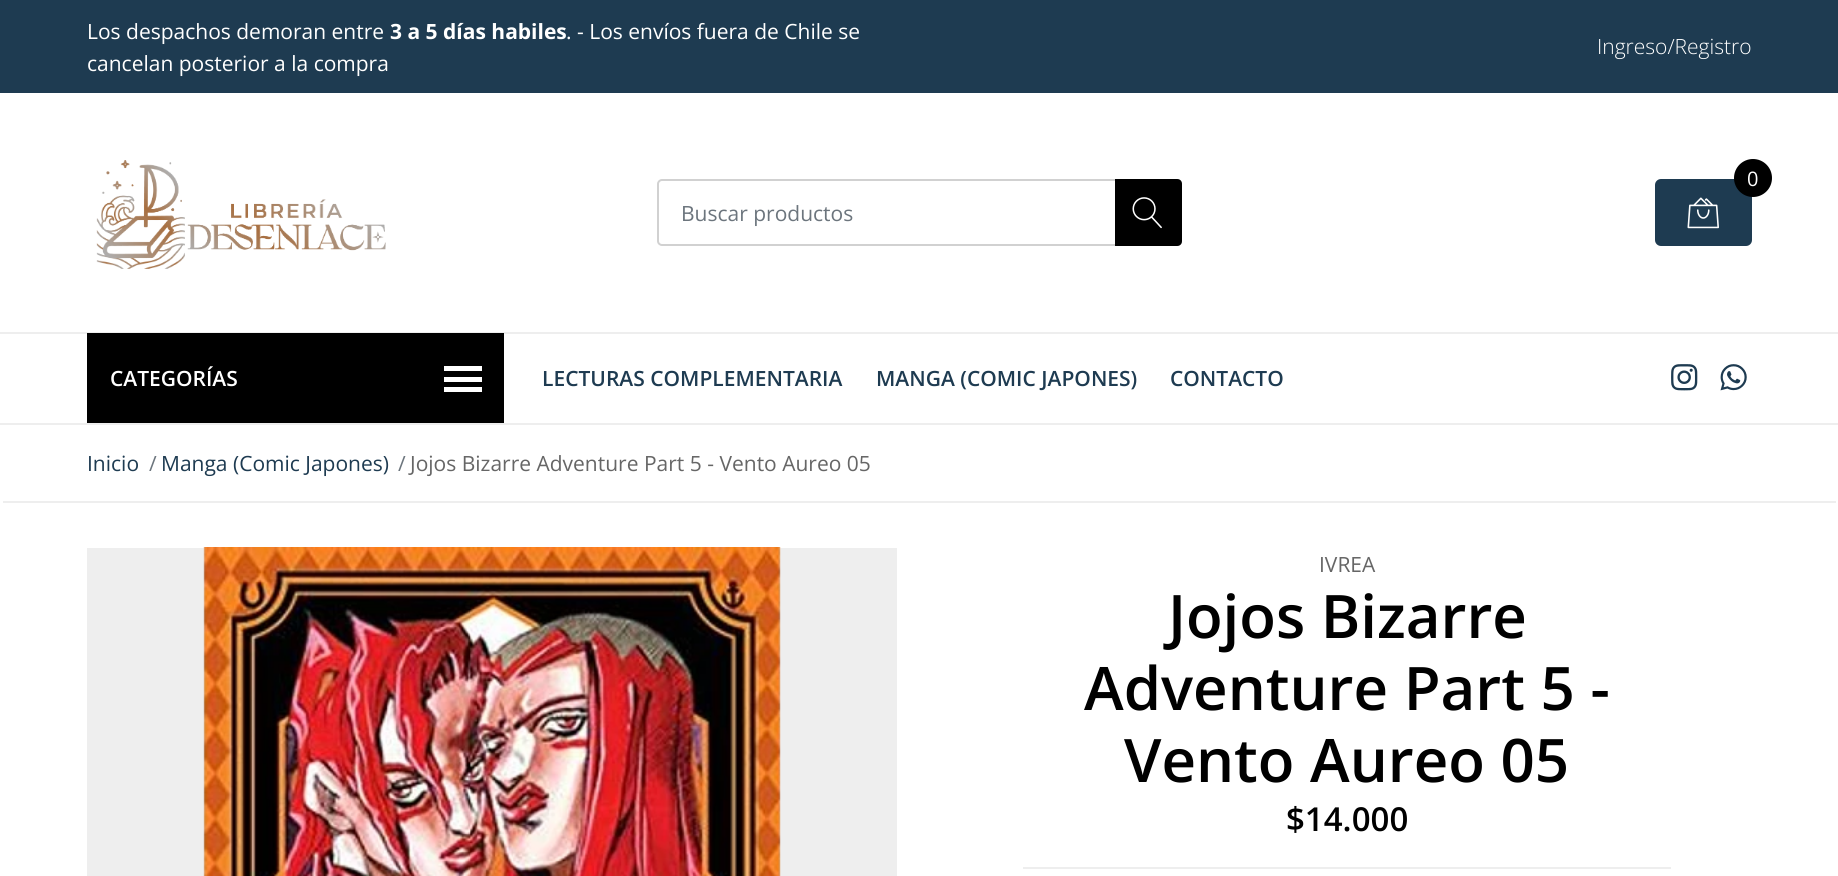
import math
import cairo

surface = cairo.ImageSurface(cairo.FORMAT_RGB24, 1838, 876)
ctx = cairo.Context(surface)
options = cairo.FontOptions()
options.set_hint_metrics(cairo.HINT_METRICS_OFF)
options.set_hint_style(cairo.HINT_STYLE_NONE)
ctx.set_font_options(options)
ctx.set_miter_limit(4)


def set_color(code):
    ctx.set_source_rgb(*(v / 255 for v in bytes.fromhex(code[-6:])))


def draw_text(x, y, s, family, size, color, bold=False, italic=False):
    ctx.select_font_face(family, cairo.FONT_SLANT_ITALIC if italic else cairo.FONT_SLANT_NORMAL, cairo.FONT_WEIGHT_BOLD if bold else cairo.FONT_WEIGHT_NORMAL)
    ctx.set_font_size(size)
    set_color(color)
    ctx.move_to(x, y)
    ctx.show_text(s)


def fill_rect(x, y, w, h, color):
    set_color(color)
    ctx.rectangle(x, y, w, h)
    ctx.fill()


def rounded_rect(x, y, w, h, r):
    ctx.new_sub_path()
    for i, (u, v) in enumerate([(x + w - r, y + h - r), (x + r, y + h - r), (x + r, y + r), (x + w - r, y + r)]):
        ctx.arc(u, v, r, i * math.pi / 2, (i + 1) * math.pi / 2)
    ctx.close_path()


def draw_image(path, x, y, w, h):
    ctx.save()
    ctx.set_source_surface(cairo.ImageSurface.create_from_png(path), x, y)
    ctx.rectangle(x, y, w, h)
    ctx.fill()
    ctx.restore()


set_color("#ffffff")
ctx.paint()
fill_rect(0, 0, 1838, 93, "#1e3b51")
draw_text(87, 39, "Los despachos demoran entre", "Open Sans", 21, "#ffffff")
draw_text(390, 39, "3 a 5 días habiles", "Open Sans", 21, "#ffffff", bold=True)
draw_text(566, 39, ". - Los envíos fuera de Chile se", "Open Sans", 21, "#ffffff")
draw_text(87, 71, "cancelan posterior a la compra", "Open Sans", 21, "#ffffff")
draw_text(1597, 54, "Ingreso/Registro", "Open Sans Light", 21, "#ffffff")
draw_image("assets/img1.png", 96, 160, 290, 109)
set_color("#1e3b51")
rounded_rect(1655, 179, 97, 67, 6)
ctx.fill()
draw_image("assets/img2.png", 1687, 197, 32, 32)
set_color("#000000")
ctx.arc(1753, 178, 19, 0, 2 * math.pi)
ctx.fill()
draw_text(1747, 186, "0", "Open Sans", 20, "#ffffff")
rounded_rect(658, 180, 523, 65, 4)
set_color("#d1d1d1")
ctx.stroke()
draw_text(681, 221, "Buscar productos", "Open Sans", 21, "#6c757d")
set_color("#000000")
ctx.new_path()
ctx.move_to(1115, 179)
ctx.line_to(1177, 179)
ctx.curve_to(1180, 179, 1182, 181, 1182, 184)
ctx.line_to(1182, 241)
ctx.curve_to(1182, 244, 1180, 246, 1177, 246)
ctx.line_to(1115, 246)
ctx.close_path()
ctx.fill()
draw_image("assets/img3.png", 1132, 197, 30, 32)
fill_rect(0, 332, 1838, 2, "#eeeeee")
fill_rect(0, 423, 1838, 2, "#eeeeee")
fill_rect(87, 333, 417, 90, "#000000")
draw_text(110, 386, "CATEGORÍAS", "Open Sans SemiBold", 21, "#ffffff")
fill_rect(444, 366, 38, 5, "#ffffff")
fill_rect(444, 377, 38, 5, "#ffffff")
fill_rect(444, 387, 38, 5, "#ffffff")
draw_text(542, 386, "LECTURAS COMPLEMENTARIA", "Open Sans SemiBold", 21, "#1e3b51")
draw_text(876, 386, "MANGA (COMIC JAPONES)", "Open Sans SemiBold", 21, "#1e3b51")
draw_text(1170, 386, "CONTACTO", "Open Sans SemiBold", 21, "#1e3b51")
draw_image("assets/img4.png", 1671, 364, 27, 27)
draw_image("assets/img5.png", 1720, 364, 27, 27)
fill_rect(3, 501, 1833, 2, "#eeeeee")
draw_text(87, 471, "Inicio", "Open Sans", 21, "#1e3b51")
draw_text(149, 471, "/", "Open Sans", 21, "#6c757d")
draw_text(161, 471, "Manga (Comic Japones)", "Open Sans", 21, "#1e3b51")
draw_text(398, 471, "/", "Open Sans", 21, "#6c757d")
draw_text(410, 471, "Jojos Bizarre Adventure Part 5 - Vento Aureo 05", "Open Sans", 21, "#666666")
fill_rect(87, 548, 810, 328, "#eeeeee")
draw_image("assets/img6.png", 203, 547, 578, 329)
fill_rect(1023, 867, 648, 2, "#eeeeee")
draw_text(1319, 572, "IVREA", "Open Sans", 21, "#666666")
draw_text(1168, 638, "Jojos Bizarre", "Open Sans SemiBold", 60, "#000000")
draw_text(1084, 710, "Adventure Part 5 -", "Open Sans SemiBold", 60, "#000000")
draw_text(1124, 782, "Vento Aureo 05", "Open Sans SemiBold", 60, "#000000")
draw_text(1286, 831, "$14.000", "Open Sans SemiBold", 33, "#000000")
surface.write_to_png("output.png")
